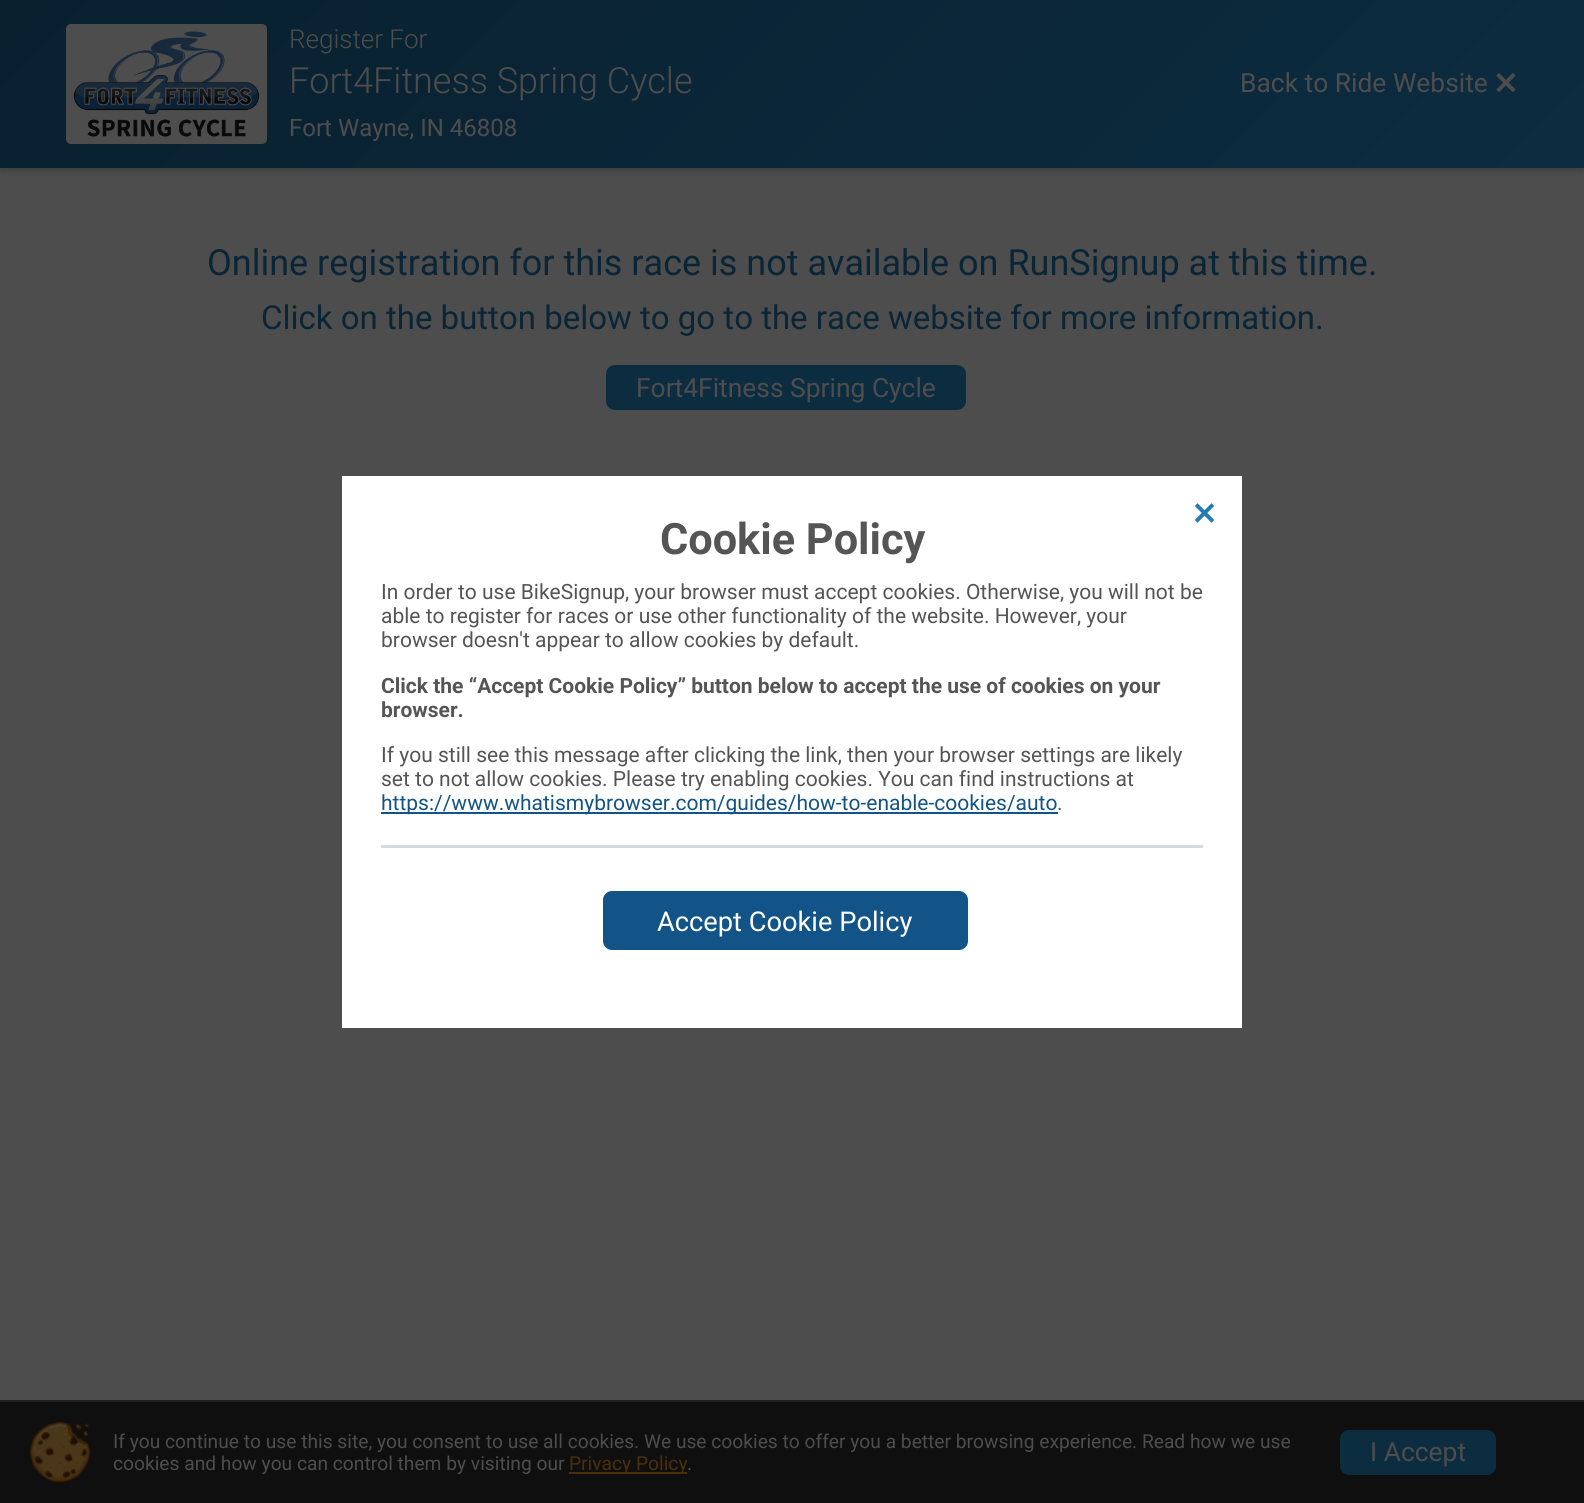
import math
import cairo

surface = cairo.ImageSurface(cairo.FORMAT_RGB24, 1584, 1503)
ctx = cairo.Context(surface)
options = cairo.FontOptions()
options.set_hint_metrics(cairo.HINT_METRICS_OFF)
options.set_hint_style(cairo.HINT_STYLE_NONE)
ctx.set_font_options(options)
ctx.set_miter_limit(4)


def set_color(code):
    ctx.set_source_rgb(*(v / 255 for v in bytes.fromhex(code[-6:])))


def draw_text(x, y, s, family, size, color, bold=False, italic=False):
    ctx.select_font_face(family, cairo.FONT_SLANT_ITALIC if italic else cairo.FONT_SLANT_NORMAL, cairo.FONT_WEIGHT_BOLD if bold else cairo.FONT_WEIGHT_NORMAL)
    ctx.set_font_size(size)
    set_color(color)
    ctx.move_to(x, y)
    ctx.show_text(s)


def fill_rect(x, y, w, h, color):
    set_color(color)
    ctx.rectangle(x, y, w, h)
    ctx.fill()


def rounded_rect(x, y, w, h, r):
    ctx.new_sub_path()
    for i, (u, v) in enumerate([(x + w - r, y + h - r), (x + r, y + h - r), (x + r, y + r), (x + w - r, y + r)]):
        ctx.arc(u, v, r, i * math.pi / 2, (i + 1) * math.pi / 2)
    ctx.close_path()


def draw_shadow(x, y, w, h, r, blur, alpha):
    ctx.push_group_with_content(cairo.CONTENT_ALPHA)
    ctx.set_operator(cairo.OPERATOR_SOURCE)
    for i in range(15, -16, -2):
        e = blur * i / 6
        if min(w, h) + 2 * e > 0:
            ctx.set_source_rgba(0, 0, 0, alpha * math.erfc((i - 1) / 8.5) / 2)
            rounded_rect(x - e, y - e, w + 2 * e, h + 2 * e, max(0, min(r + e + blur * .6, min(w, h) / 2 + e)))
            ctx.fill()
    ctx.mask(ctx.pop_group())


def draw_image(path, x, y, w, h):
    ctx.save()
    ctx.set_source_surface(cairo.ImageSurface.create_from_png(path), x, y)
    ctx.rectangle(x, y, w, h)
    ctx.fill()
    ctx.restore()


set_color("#4d4d4d")
ctx.paint()
set_color("#000000")
draw_shadow(0, 3, 1584, 168, 0, 3, 0.18)
gradient = cairo.LinearGradient(1230, 522, 354, -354)
gradient.add_color_stop_rgba(0, 0.047, 0.173, 0.251, 1)
gradient.add_color_stop_rgba(1, 0.035, 0.125, 0.184, 1)
ctx.set_source(gradient)
ctx.rectangle(0, 0, 1584, 168)
ctx.fill()
set_color("#4d4d4d")
rounded_rect(66, 24, 201, 120, 5)
ctx.fill()
draw_image("assets/img1.png", 73, 31, 187, 106)
draw_text(289, 48, "Register For", "Roboto Light", 26, "#4d4d4d")
draw_text(289, 93, "Fort4Fitness Spring Cycle", "Roboto Light", 36, "#4d4d4d")
draw_text(289, 136, "Fort Wayne, IN 46808", "Roboto", 24, "#4d4d4d")
draw_text(1240, 92, "Back to Ride Website", "Roboto", 26.4, "#4d4d4d")
draw_image("assets/img2.png", 1496, 73, 20, 20)
draw_text(207, 275, "Online registration for this race is not available on RunSignup at this time.", "Roboto", 36, "#0a2536")
draw_text(261, 329, "Click on the button below to go to the race website for more information.", "Roboto", 33, "#0a2536")
set_color("#0c2c40")
rounded_rect(606, 365, 360, 45, 9)
ctx.fill()
draw_text(636, 397, "Fort4Fitness Spring Cycle", "Roboto", 26.4, "#4d4d4d")
ctx.rectangle(343, 477, 898, 550)
set_color("#ffffff")
ctx.stroke()
fill_rect(344, 478, 896, 548, "#ffffff")
draw_image("assets/img3.png", 1194, 503, 21, 20)
draw_text(660, 554, "Cookie Policy", "Roboto", 43.25, "#555555", bold=True)
draw_text(381, 599, "In order to use BikeSignup, your browser must accept cookies. Otherwise, you will not be", "Roboto", 21, "#555555")
draw_text(381, 623, "able to register for races or use other functionality of the website. However, your", "Roboto", 21, "#555555")
draw_text(381, 647, "browser doesn't appear to allow cookies by default.", "Roboto", 21, "#555555")
draw_text(381, 693, "Click the “Accept Cookie Policy” button below to accept the use of cookies on your", "Roboto", 21, "#555555", bold=True)
draw_text(381, 717, "browser.", "Roboto", 21, "#555555", bold=True)
draw_text(381, 762, "If you still see this message after clicking the link, then your browser settings are likely", "Roboto", 21, "#555555")
draw_text(381, 786, "set to not allow cookies. Please try enabling cookies. You can find instructions at", "Roboto", 21, "#555555")
fill_rect(381, 812, 677, 2, "#125388")
draw_text(381, 810, "https://www.whatismybrowser.com/guides/how-to-enable-cookies/auto", "Roboto", 21, "#125388")
draw_text(1057, 810, ".", "Roboto", 21, "#555555")
fill_rect(381, 845, 822, 3, "#d3dbdf")
set_color("#125388")
rounded_rect(603, 891, 365, 59, 9)
ctx.fill()
draw_text(657, 931, "Accept Cookie Policy", "Roboto", 27.25, "#ffffff")
fill_rect(0, 1402, 1584, 101, "#0f0f0f")
fill_rect(0, 1400, 1584, 2, "#1f1f1f")
draw_image("assets/img4.png", 30, 1422, 60, 61)
draw_text(113, 1448, "If you continue to use this site, you consent to use all cookies. We use cookies to offer you a better browsing experience. Read how we use", "Roboto", 19.2, "#4d4d4d")
draw_text(113, 1470, "cookies and how you can control them by visiting our", "Roboto", 19.2, "#4d4d4d")
fill_rect(569, 1472, 118, 2, "#4c2e0b")
draw_text(569, 1470, "Privacy Policy", "Roboto", 19.2, "#4c2e0b")
draw_text(687, 1470, ".", "Roboto", 19.2, "#4d4d4d")
set_color("#0c2c40")
rounded_rect(1340, 1430, 156, 45, 9)
ctx.fill()
draw_text(1370, 1461, "I Accept", "Roboto", 26.4, "#4d4d4d")
surface.write_to_png("output.png")
